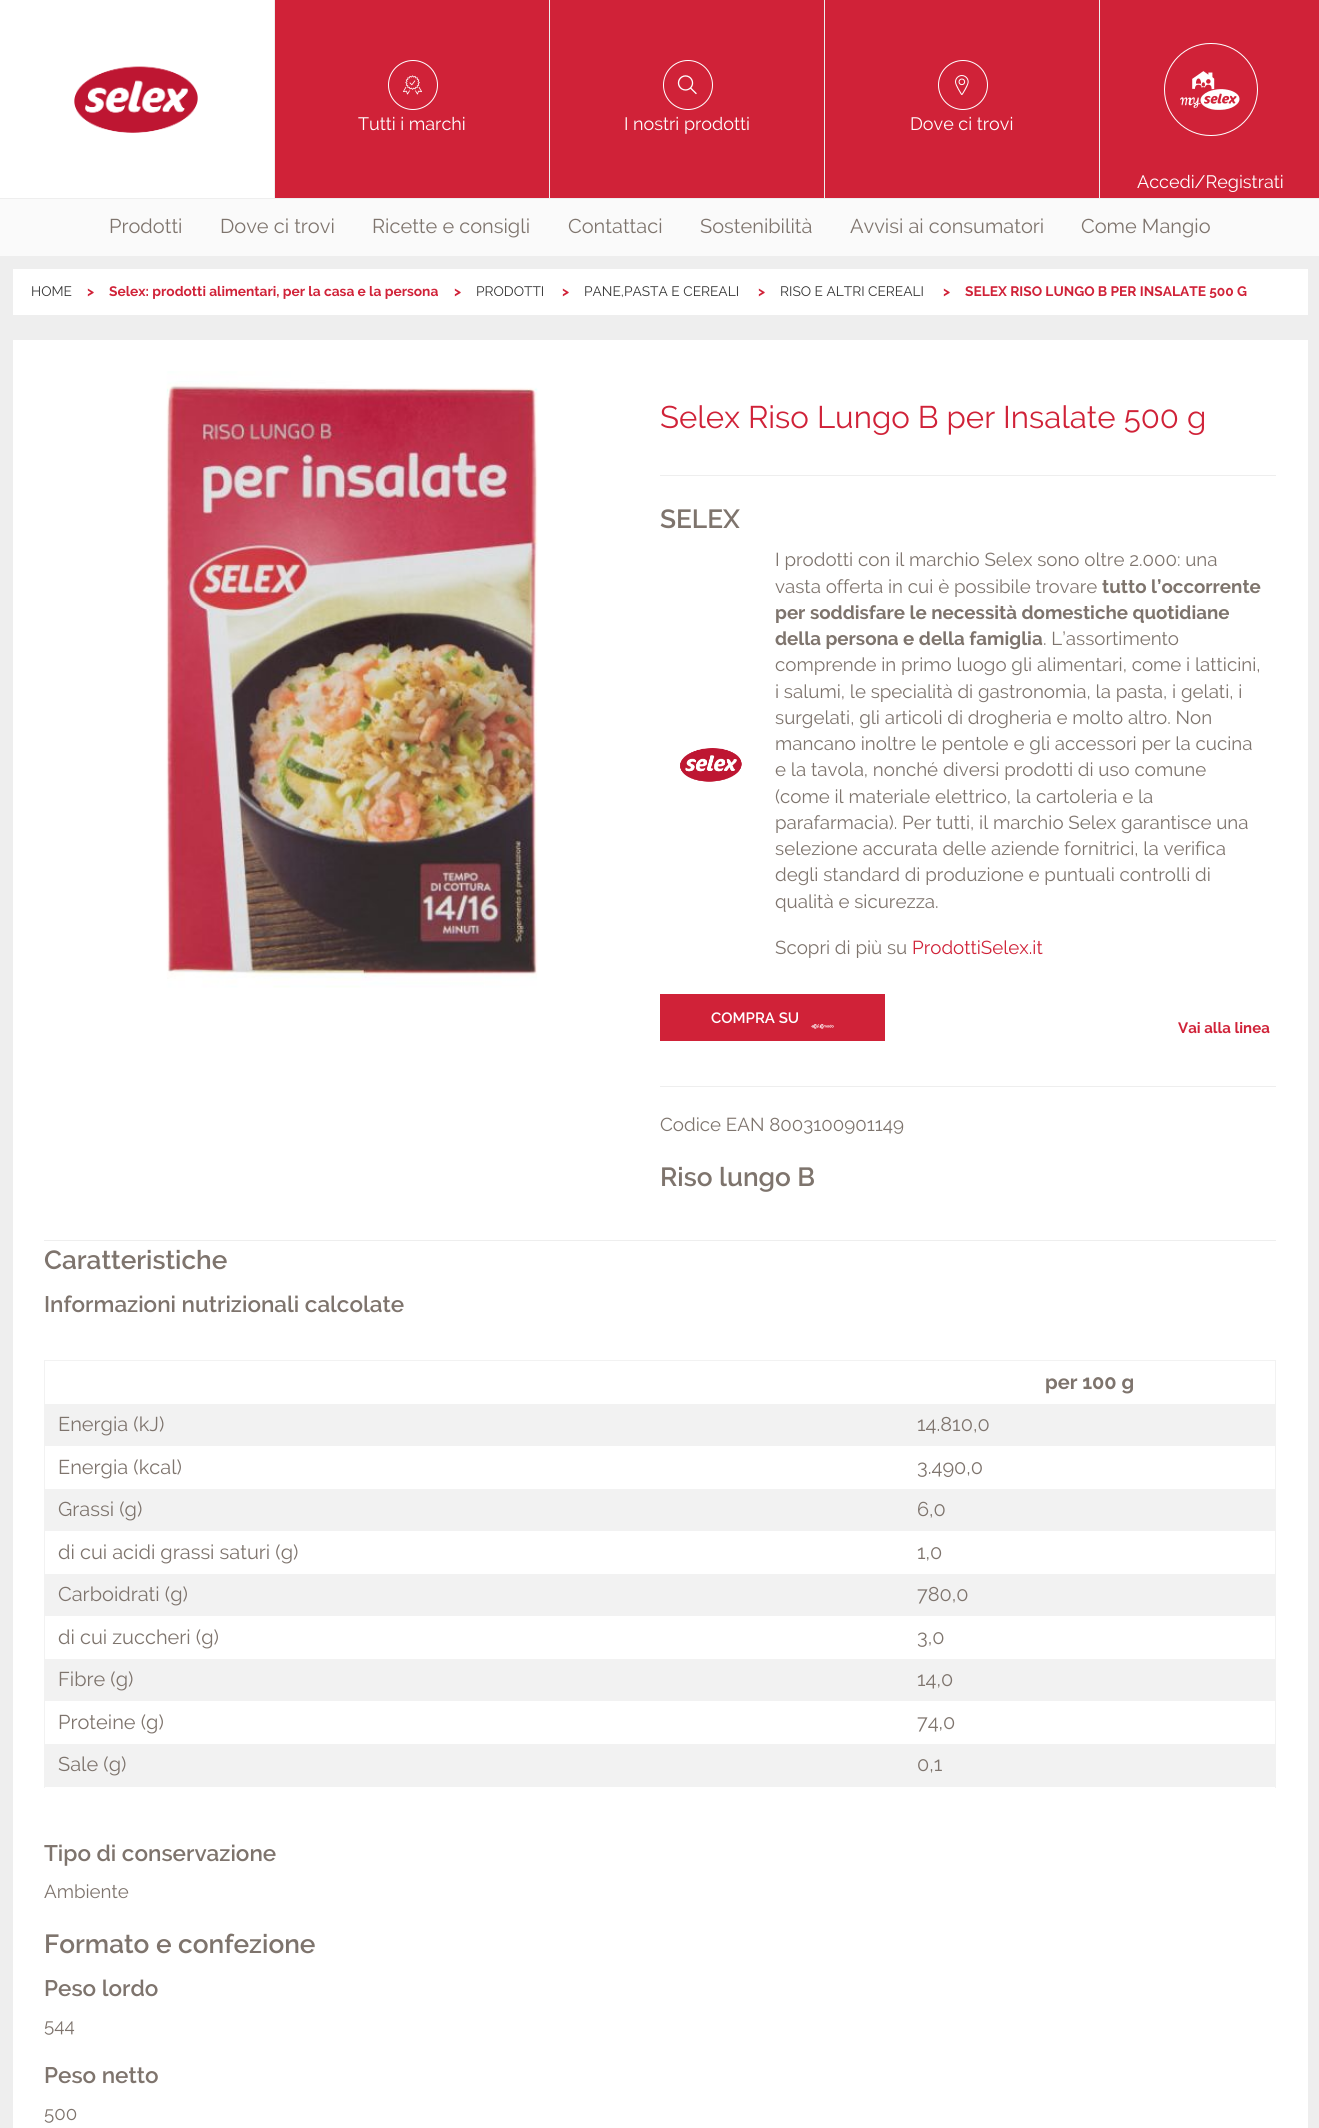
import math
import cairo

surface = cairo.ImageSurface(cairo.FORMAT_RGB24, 1319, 2128)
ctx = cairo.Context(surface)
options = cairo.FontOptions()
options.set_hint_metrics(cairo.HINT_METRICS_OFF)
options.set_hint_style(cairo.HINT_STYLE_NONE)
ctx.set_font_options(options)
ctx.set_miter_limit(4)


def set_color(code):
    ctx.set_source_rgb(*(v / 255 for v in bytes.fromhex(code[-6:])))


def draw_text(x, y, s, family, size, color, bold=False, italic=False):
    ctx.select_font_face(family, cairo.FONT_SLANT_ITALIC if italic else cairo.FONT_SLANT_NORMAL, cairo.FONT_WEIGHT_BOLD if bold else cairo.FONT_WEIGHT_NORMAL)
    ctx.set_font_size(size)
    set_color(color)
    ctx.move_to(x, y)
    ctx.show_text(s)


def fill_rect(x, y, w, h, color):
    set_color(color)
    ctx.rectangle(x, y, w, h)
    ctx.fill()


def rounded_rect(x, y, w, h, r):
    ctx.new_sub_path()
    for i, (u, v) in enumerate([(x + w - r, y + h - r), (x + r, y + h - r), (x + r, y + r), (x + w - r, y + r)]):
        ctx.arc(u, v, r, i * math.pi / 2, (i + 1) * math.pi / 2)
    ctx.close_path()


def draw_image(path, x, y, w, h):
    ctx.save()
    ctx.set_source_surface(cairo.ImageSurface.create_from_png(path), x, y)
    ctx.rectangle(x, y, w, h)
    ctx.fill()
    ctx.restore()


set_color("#eeeeee")
ctx.paint()
fill_rect(0, 0, 274, 198, "#ffffff")
draw_image("assets/img1.png", 74, 66, 124, 67)
fill_rect(275, 0, 274, 198, "#d02238")
ctx.arc(413, 85, 24.5, 0, 2 * math.pi)
set_color("#ffffff")
ctx.set_line_width(1)
ctx.stroke()
draw_image("assets/img2.png", 403, 75, 19, 20)
draw_text(358, 130, "Tutti i marchi", "Raleway", 18, "#ffffff")
fill_rect(550, 0, 274, 198, "#d02238")
ctx.new_path()
ctx.arc(688, 85, 24.5, 0, 2 * math.pi)
set_color("#ffffff")
ctx.stroke()
draw_image("assets/img3.png", 677, 75, 20, 20)
draw_text(624, 130, "I nostri prodotti", "Raleway", 18, "#ffffff")
fill_rect(825, 0, 274, 198, "#d02238")
ctx.new_path()
ctx.arc(963, 85, 24.5, 0, 2 * math.pi)
set_color("#ffffff")
ctx.stroke()
draw_image("assets/img4.png", 955, 75, 14, 20)
draw_text(910, 130, "Dove ci trovi", "Raleway", 18, "#ffffff")
fill_rect(1100, 0, 219, 198, "#d02238")
rounded_rect(1164.5, 43.5, 93, 92, 46)
set_color("#ffffff")
ctx.stroke()
draw_image("assets/img5.png", 1180, 71, 60, 39)
draw_text(1137, 188, "Accedi/Registrati", "Raleway", 18, "#ffffff")
fill_rect(0, 199, 1319, 57, "#fafafa")
draw_text(109, 233, "Prodotti", "Raleway", 20, "#7e746d")
draw_text(220, 233, "Dove ci trovi", "Raleway", 20, "#7e746d")
draw_text(372, 233, "Ricette e consigli", "Raleway", 20, "#7e746d")
draw_text(568, 233, "Contattaci", "Raleway", 20, "#7e746d")
draw_text(700, 233, "Sostenibilità", "Raleway", 20, "#7e746d")
draw_text(850, 233, "Avvisi ai consumatori", "Raleway", 20, "#7e746d")
draw_text(1081, 233, "Come Mangio", "Raleway", 20, "#7e746d")
fill_rect(13, 269, 1295, 46, "#ffffff")
draw_text(31, 296, "HOME", "Raleway", 13.75, "#353535")
draw_text(87, 296, ">", "Raleway", 13.75, "#d02238", bold=True)
draw_text(109, 296, "Selex: prodotti alimentari, per la casa e la persona", "Raleway", 13.75, "#d02238", bold=True)
draw_text(454, 296, ">", "Raleway", 13.75, "#d02238", bold=True)
draw_text(476, 296, "PRODOTTI", "Raleway", 13.75, "#353535")
draw_text(562, 296, ">", "Raleway", 13.75, "#d02238", bold=True)
draw_text(584, 296, "PANE,PASTA E CEREALI", "Raleway", 13.75, "#353535")
draw_text(758, 296, ">", "Raleway", 13.75, "#d02238", bold=True)
draw_text(780, 296, "RISO E ALTRI CEREALI", "Raleway", 13.75, "#353535")
draw_text(943, 296, ">", "Raleway", 13.75, "#d02238", bold=True)
draw_text(965, 296, "SELEX RISO LUNGO B PER INSALATE 500 G", "Raleway", 13.75, "#d02238", bold=True)
fill_rect(13, 340, 1295, 1788, "#ffffff")
fill_rect(44, 1240, 1232, 1, "#eeeeee")
draw_image("assets/img6.png", 166, 371, 372, 617)
fill_rect(660, 475, 616, 1, "#eeeeee")
draw_text(660, 428, "Selex Riso Lungo B per Insalate 500 g", "Raleway", 31.25, "#d02238")
fill_rect(660, 1086, 616, 1, "#eeeeee")
draw_text(660, 528, "SELEX", "Raleway SemiBold", 26.25, "#7e746d")
draw_image("assets/img7.png", 680, 748, 62, 34)
draw_text(775, 566, "I prodotti con il marchio Selex sono oltre 2.000: una", "Raleway", 18.75, "#7e746d")
draw_text(775, 593, "vasta offerta in cui è possibile trovare", "Raleway", 18.75, "#7e746d")
draw_text(1102, 593, "tutto l’occorrente", "Raleway", 18.75, "#7e746d", bold=True)
draw_text(775, 619, "per soddisfare le necessità domestiche quotidiane", "Raleway", 18.75, "#7e746d", bold=True)
draw_text(775, 645, "della persona e della famiglia", "Raleway", 18.75, "#7e746d", bold=True)
draw_text(1043, 645, ". L’assortimento", "Raleway", 18.75, "#7e746d")
draw_text(775, 671, "comprende in primo luogo gli alimentari, come i latticini,", "Raleway", 18.75, "#7e746d")
draw_text(775, 698, "i salumi, le specialità di gastronomia, la pasta, i gelati, i", "Raleway", 18.75, "#7e746d")
draw_text(775, 724, "surgelati, gli articoli di drogheria e molto altro. Non", "Raleway", 18.75, "#7e746d")
draw_text(775, 750, "mancano inoltre le pentole e gli accessori per la cucina", "Raleway", 18.75, "#7e746d")
draw_text(775, 776, "e la tavola, nonché diversi prodotti di uso comune", "Raleway", 18.75, "#7e746d")
draw_text(775, 803, "(come il materiale elettrico, la cartoleria e la", "Raleway", 18.75, "#7e746d")
draw_text(775, 829, "parafarmacia). Per tutti, il marchio Selex garantisce una", "Raleway", 18.75, "#7e746d")
draw_text(775, 855, "selezione accurata delle aziende fornitrici, la verifica", "Raleway", 18.75, "#7e746d")
draw_text(775, 881, "degli standard di produzione e puntuali controlli di", "Raleway", 18.75, "#7e746d")
draw_text(775, 908, "qualità e sicurezza.", "Raleway", 18.75, "#7e746d")
draw_text(775, 954, "Scopri di più su", "Raleway", 18.75, "#7e746d")
draw_text(912, 954, "ProdottiSelex.it", "Raleway", 18.75, "#d02238")
fill_rect(660, 994, 225, 47, "#d02238")
draw_text(711, 1023, "COMPRA SU", "Raleway SemiBold", 15, "#ffffff")
draw_image("assets/img8.png", 811, 1024, 23, 5)
draw_text(1178, 1033, "Vai alla linea", "Raleway", 15, "#d02238", bold=True)
draw_text(660, 1131, "Codice EAN 8003100901149", "Raleway", 18.75, "#7e746d")
draw_text(660, 1186, "Riso lungo B", "Raleway SemiBold", 26.25, "#7e746d")
draw_text(44, 1269, "Caratteristiche", "Raleway SemiBold", 26.25, "#7e746d")
draw_text(44, 1312, "Informazioni nutrizionali calcolate", "Raleway SemiBold", 22.5, "#7e746d")
fill_rect(44, 1360, 1232, 1, "#f2f2f2")
fill_rect(1275, 1360, 1, 428, "#f2f2f2")
fill_rect(44, 1786, 1232, 1, "#f2f2f2")
fill_rect(44, 1360, 1, 428, "#f2f2f2")
draw_text(1045, 1389, "per 100 g", "Raleway", 20, "#7e746d", bold=True)
fill_rect(45, 1404, 1230, 42, "#f2f2f2")
draw_text(58, 1431, "Energia (kJ)", "Raleway", 20, "#7e746d")
draw_text(917, 1431, "14.810,0", "Raleway", 20, "#7e746d")
draw_text(58, 1474, "Energia (kcal)", "Raleway", 20, "#7e746d")
draw_text(917, 1474, "3.490,0", "Raleway", 20, "#7e746d")
fill_rect(45, 1489, 1230, 42, "#f2f2f2")
draw_text(58, 1516, "Grassi (g)", "Raleway", 20, "#7e746d")
draw_text(917, 1516, "6,0", "Raleway", 20, "#7e746d")
draw_text(58, 1559, "di cui acidi grassi saturi (g)", "Raleway", 20, "#7e746d")
draw_text(917, 1559, "1,0", "Raleway", 20, "#7e746d")
fill_rect(45, 1574, 1230, 42, "#f2f2f2")
draw_text(58, 1601, "Carboidrati (g)", "Raleway", 20, "#7e746d")
draw_text(917, 1601, "780,0", "Raleway", 20, "#7e746d")
draw_text(58, 1644, "di cui zuccheri (g)", "Raleway", 20, "#7e746d")
draw_text(917, 1644, "3,0", "Raleway", 20, "#7e746d")
fill_rect(45, 1659, 1230, 42, "#f2f2f2")
draw_text(58, 1686, "Fibre (g)", "Raleway", 20, "#7e746d")
draw_text(917, 1686, "14,0", "Raleway", 20, "#7e746d")
draw_text(58, 1729, "Proteine (g)", "Raleway", 20, "#7e746d")
draw_text(917, 1729, "74,0", "Raleway", 20, "#7e746d")
fill_rect(45, 1744, 1230, 42, "#f2f2f2")
draw_text(58, 1771, "Sale (g)", "Raleway", 20, "#7e746d")
draw_text(917, 1771, "0,1", "Raleway", 20, "#7e746d")
draw_text(44, 1861, "Tipo di conservazione", "Raleway SemiBold", 22.5, "#7e746d")
draw_text(44, 1898, "Ambiente", "Raleway", 18.75, "#7e746d")
draw_text(44, 1953, "Formato e confezione", "Raleway SemiBold", 26.25, "#7e746d")
draw_text(44, 1996, "Peso lordo", "Raleway SemiBold", 22.5, "#7e746d")
draw_text(44, 2032, "544", "Raleway", 18.75, "#7e746d")
draw_text(44, 2083, "Peso netto", "Raleway SemiBold", 22.5, "#7e746d")
draw_text(44, 2120, "500", "Raleway", 18.75, "#7e746d")
surface.write_to_png("output.png")
